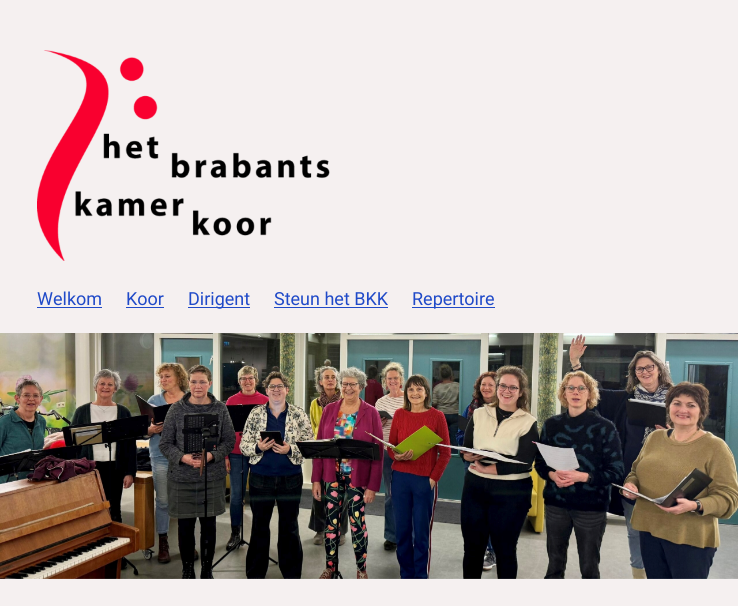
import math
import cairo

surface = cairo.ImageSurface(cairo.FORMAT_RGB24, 738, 606)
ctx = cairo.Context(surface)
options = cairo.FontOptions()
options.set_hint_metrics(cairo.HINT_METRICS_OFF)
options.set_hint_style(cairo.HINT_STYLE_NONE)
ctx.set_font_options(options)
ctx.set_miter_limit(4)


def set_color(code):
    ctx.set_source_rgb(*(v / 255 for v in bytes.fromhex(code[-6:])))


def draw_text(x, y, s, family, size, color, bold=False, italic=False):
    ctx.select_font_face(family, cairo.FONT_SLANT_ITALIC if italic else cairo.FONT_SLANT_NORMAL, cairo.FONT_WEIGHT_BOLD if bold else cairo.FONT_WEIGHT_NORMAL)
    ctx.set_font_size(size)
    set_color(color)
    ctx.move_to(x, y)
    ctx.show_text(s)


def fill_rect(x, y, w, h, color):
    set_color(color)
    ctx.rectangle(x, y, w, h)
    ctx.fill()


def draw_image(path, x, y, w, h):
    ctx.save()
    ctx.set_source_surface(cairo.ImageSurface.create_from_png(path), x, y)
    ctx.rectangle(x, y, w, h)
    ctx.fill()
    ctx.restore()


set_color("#f5f0f0")
ctx.paint()
draw_image("assets/img1.png", 37, 50, 293, 211)
draw_text(37, 305, "Welkom", "Roboto", 18, "#204ac8")
fill_rect(37, 307, 65, 1, "#204ac8")
draw_text(126, 305, "Koor", "Roboto", 18, "#204ac8")
fill_rect(126, 307, 38, 1, "#204ac8")
fill_rect(188, 307, 62, 1, "#204ac8")
draw_text(188, 305, "Dirigent", "Roboto", 18, "#204ac8")
draw_text(274, 305, "Steun het BKK", "Roboto", 18, "#204ac8")
fill_rect(274, 307, 114, 1, "#204ac8")
fill_rect(412, 307, 83, 1, "#204ac8")
draw_text(412, 305, "Repertoire", "Roboto", 18, "#204ac8")
draw_image("assets/img2.png", 0, 333, 738, 246)
surface.write_to_png("output.png")
